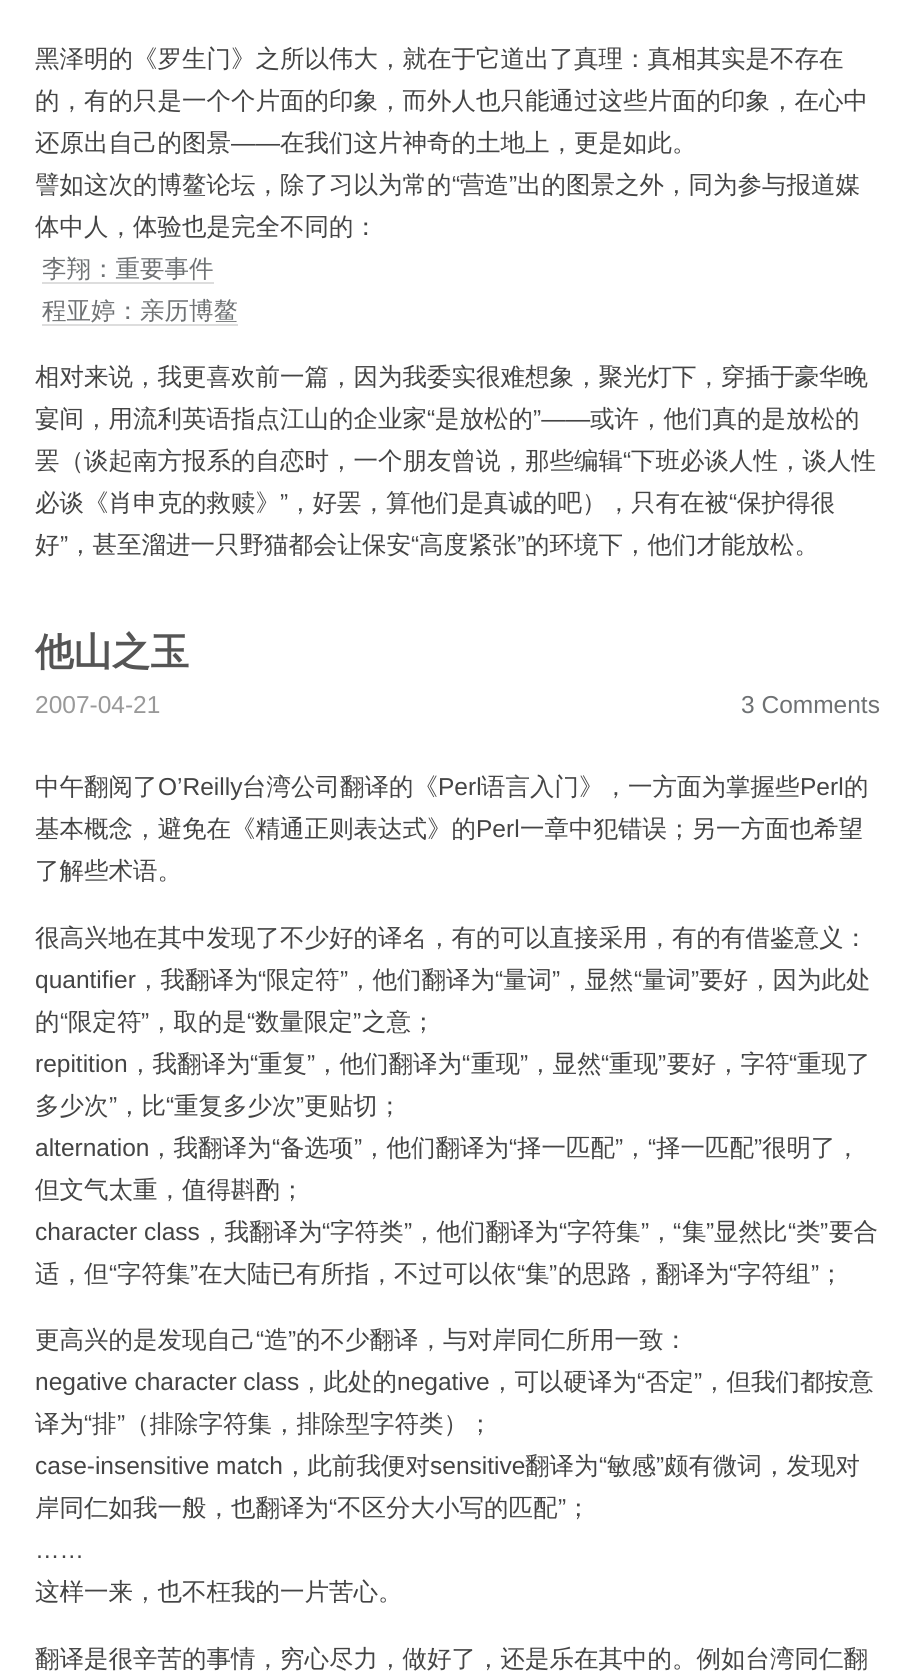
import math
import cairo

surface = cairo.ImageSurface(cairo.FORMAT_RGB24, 914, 1671)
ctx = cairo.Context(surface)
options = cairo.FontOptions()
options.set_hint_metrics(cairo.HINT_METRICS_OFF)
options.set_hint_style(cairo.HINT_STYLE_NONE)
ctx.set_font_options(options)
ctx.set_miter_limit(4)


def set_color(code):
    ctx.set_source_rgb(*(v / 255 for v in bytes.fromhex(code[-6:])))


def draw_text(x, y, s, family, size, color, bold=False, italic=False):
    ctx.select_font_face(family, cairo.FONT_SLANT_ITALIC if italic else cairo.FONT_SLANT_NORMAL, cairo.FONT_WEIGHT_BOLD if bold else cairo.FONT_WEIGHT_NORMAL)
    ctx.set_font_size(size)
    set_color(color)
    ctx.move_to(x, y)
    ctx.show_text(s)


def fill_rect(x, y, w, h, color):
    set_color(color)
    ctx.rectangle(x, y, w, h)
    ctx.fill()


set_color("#ffffff")
ctx.paint()
draw_text(35, 67, "黑泽明的《罗生门》之所以伟大，就在于它道出了真理：真相其实是不存在", "WenQuanYi Zen Hei Medium", 24.5, "#444444")
draw_text(35, 109, "的，有的只是一个个片面的印象，而外人也只能通过这些片面的印象，在心中", "WenQuanYi Zen Hei Medium", 24.5, "#444444")
draw_text(35, 151, "还原出自己的图景", "WenQuanYi Zen Hei Medium", 24.5, "#444444")
draw_text(231, 151, "——", "Liberation Sans", 24.5, "#444444")
draw_text(280, 151, "在我们这片神奇的土地上，更是如此。", "WenQuanYi Zen Hei Medium", 24.5, "#444444")
draw_text(35, 193, "譬如这次的博鳌论坛，除了习以为常的", "WenQuanYi Zen Hei Medium", 24.5, "#444444")
draw_text(452, 193, "“", "Liberation Sans", 24.5, "#444444")
draw_text(460, 193, "营造", "WenQuanYi Zen Hei Medium", 24.5, "#444444")
draw_text(509, 193, "”", "Liberation Sans", 24.5, "#444444")
draw_text(517, 193, "出的图景之外，同为参与报道媒", "WenQuanYi Zen Hei Medium", 24.5, "#444444")
draw_text(35, 235, "体中人，体验也是完全不同的：", "WenQuanYi Zen Hei Medium", 24.5, "#444444")
draw_text(42, 277, "李翔：重要事件", "WenQuanYi Zen Hei Medium", 24.5, "#6e7173")
fill_rect(42, 282, 172, 2, "#dddddd")
draw_text(42, 319, "程亚婷：亲历博鳌", "WenQuanYi Zen Hei Medium", 24.5, "#6e7173")
fill_rect(42, 324, 196, 2, "#dddddd")
draw_text(35, 385, "相对来说，我更喜欢前一篇，因为我委实很难想象，聚光灯下，穿插于豪华晚", "WenQuanYi Zen Hei Medium", 24.5, "#444444")
draw_text(35, 427, "宴间，用流利英语指点江山的企业家", "WenQuanYi Zen Hei Medium", 24.5, "#444444")
draw_text(427, 427, "“", "Liberation Sans", 24.5, "#444444")
draw_text(435, 427, "是放松的", "WenQuanYi Zen Hei Medium", 24.5, "#444444")
draw_text(533, 427, "”——", "Liberation Sans", 24.5, "#444444")
draw_text(590, 427, "或许，他们真的是放松的", "WenQuanYi Zen Hei Medium", 24.5, "#444444")
draw_text(35, 469, "罢（谈起南方报系的自恋时，一个朋友曾说，那些编辑", "WenQuanYi Zen Hei Medium", 24.5, "#444444")
draw_text(623, 469, "“", "Liberation Sans", 24.5, "#444444")
draw_text(631, 469, "下班必谈人性，谈人性", "WenQuanYi Zen Hei Medium", 24.5, "#444444")
draw_text(35, 511, "必谈《肖申克的救赎》", "WenQuanYi Zen Hei Medium", 24.5, "#444444")
draw_text(280, 511, "”", "Liberation Sans", 24.5, "#444444")
draw_text(288, 511, "，好罢，算他们是真诚的吧），只有在被", "WenQuanYi Zen Hei Medium", 24.5, "#444444")
draw_text(729, 511, "“", "Liberation Sans", 24.5, "#444444")
draw_text(737, 511, "保护得很", "WenQuanYi Zen Hei Medium", 24.5, "#444444")
draw_text(35, 553, "好", "WenQuanYi Zen Hei Medium", 24.5, "#444444")
draw_text(60, 553, "”", "Liberation Sans", 24.5, "#444444")
draw_text(68, 553, "，甚至溜进一只野猫都会让保安", "WenQuanYi Zen Hei Medium", 24.5, "#444444")
draw_text(411, 553, "“", "Liberation Sans", 24.5, "#444444")
draw_text(419, 553, "高度紧张", "WenQuanYi Zen Hei Medium", 24.5, "#444444")
draw_text(517, 553, "”", "Liberation Sans", 24.5, "#444444")
draw_text(525, 553, "的环境下，他们才能放松。", "WenQuanYi Zen Hei Medium", 24.5, "#444444")
draw_text(35, 665, "他山之玉", "WenQuanYi Zen Hei", 38.5, "#555555", bold=True)
draw_text(35, 713, "2007-04-21", "Liberation Sans", 24.5, "#999999")
draw_text(741, 713, "3 Comments", "Liberation Sans", 24.5, "#6e7173")
draw_text(35, 795, "中午翻阅了", "WenQuanYi Zen Hei Medium", 24.5, "#444444")
draw_text(158, 795, "O’Reilly", "Liberation Sans", 24.5, "#444444")
draw_text(242, 795, "台湾公司翻译的《", "WenQuanYi Zen Hei Medium", 24.5, "#444444")
draw_text(438, 795, "Perl", "Liberation Sans", 24.5, "#444444")
draw_text(481, 795, "语言入门》，一方面为掌握些", "WenQuanYi Zen Hei Medium", 24.5, "#444444")
draw_text(800, 795, "Perl", "Liberation Sans", 24.5, "#444444")
draw_text(844, 795, "的", "WenQuanYi Zen Hei Medium", 24.5, "#444444")
draw_text(35, 837, "基本概念，避免在《精通正则表达式》的", "WenQuanYi Zen Hei Medium", 24.5, "#444444")
draw_text(476, 837, "Perl", "Liberation Sans", 24.5, "#444444")
draw_text(520, 837, "一章中犯错误；另一方面也希望", "WenQuanYi Zen Hei Medium", 24.5, "#444444")
draw_text(35, 879, "了解些术语。", "WenQuanYi Zen Hei Medium", 24.5, "#444444")
draw_text(35, 946, "很高兴地在其中发现了不少好的译名，有的可以直接采用，有的有借鉴意义：", "WenQuanYi Zen Hei Medium", 24.5, "#444444")
draw_text(35, 988, "quantifier", "Liberation Sans", 24.5, "#444444")
draw_text(136, 988, "，我翻译为", "WenQuanYi Zen Hei Medium", 24.5, "#444444")
draw_text(258, 988, "“", "Liberation Sans", 24.5, "#444444")
draw_text(266, 988, "限定符", "WenQuanYi Zen Hei Medium", 24.5, "#444444")
draw_text(340, 988, "”", "Liberation Sans", 24.5, "#444444")
draw_text(348, 988, "，他们翻译为", "WenQuanYi Zen Hei Medium", 24.5, "#444444")
draw_text(495, 988, "“", "Liberation Sans", 24.5, "#444444")
draw_text(503, 988, "量词", "WenQuanYi Zen Hei Medium", 24.5, "#444444")
draw_text(552, 988, "”", "Liberation Sans", 24.5, "#444444")
draw_text(560, 988, "，显然", "WenQuanYi Zen Hei Medium", 24.5, "#444444")
draw_text(634, 988, "“", "Liberation Sans", 24.5, "#444444")
draw_text(642, 988, "量词", "WenQuanYi Zen Hei Medium", 24.5, "#444444")
draw_text(691, 988, "”", "Liberation Sans", 24.5, "#444444")
draw_text(699, 988, "要好，因为此处", "WenQuanYi Zen Hei Medium", 24.5, "#444444")
draw_text(35, 1030, "的", "WenQuanYi Zen Hei Medium", 24.5, "#444444")
draw_text(60, 1030, "“", "Liberation Sans", 24.5, "#444444")
draw_text(68, 1030, "限定符", "WenQuanYi Zen Hei Medium", 24.5, "#444444")
draw_text(141, 1030, "”", "Liberation Sans", 24.5, "#444444")
draw_text(149, 1030, "，取的是", "WenQuanYi Zen Hei Medium", 24.5, "#444444")
draw_text(247, 1030, "“", "Liberation Sans", 24.5, "#444444")
draw_text(255, 1030, "数量限定", "WenQuanYi Zen Hei Medium", 24.5, "#444444")
draw_text(353, 1030, "”", "Liberation Sans", 24.5, "#444444")
draw_text(362, 1030, "之意；", "WenQuanYi Zen Hei Medium", 24.5, "#444444")
draw_text(35, 1072, "repitition", "Liberation Sans", 24.5, "#444444")
draw_text(128, 1072, "，我翻译为", "WenQuanYi Zen Hei Medium", 24.5, "#444444")
draw_text(250, 1072, "“", "Liberation Sans", 24.5, "#444444")
draw_text(258, 1072, "重复", "WenQuanYi Zen Hei Medium", 24.5, "#444444")
draw_text(307, 1072, "”", "Liberation Sans", 24.5, "#444444")
draw_text(315, 1072, "，他们翻译为", "WenQuanYi Zen Hei Medium", 24.5, "#444444")
draw_text(462, 1072, "“", "Liberation Sans", 24.5, "#444444")
draw_text(471, 1072, "重现", "WenQuanYi Zen Hei Medium", 24.5, "#444444")
draw_text(520, 1072, "”", "Liberation Sans", 24.5, "#444444")
draw_text(528, 1072, "，显然", "WenQuanYi Zen Hei Medium", 24.5, "#444444")
draw_text(601, 1072, "“", "Liberation Sans", 24.5, "#444444")
draw_text(609, 1072, "重现", "WenQuanYi Zen Hei Medium", 24.5, "#444444")
draw_text(658, 1072, "”", "Liberation Sans", 24.5, "#444444")
draw_text(667, 1072, "要好，字符", "WenQuanYi Zen Hei Medium", 24.5, "#444444")
draw_text(789, 1072, "“", "Liberation Sans", 24.5, "#444444")
draw_text(797, 1072, "重现了", "WenQuanYi Zen Hei Medium", 24.5, "#444444")
draw_text(35, 1114, "多少次", "WenQuanYi Zen Hei Medium", 24.5, "#444444")
draw_text(109, 1114, "”", "Liberation Sans", 24.5, "#444444")
draw_text(117, 1114, "，比", "WenQuanYi Zen Hei Medium", 24.5, "#444444")
draw_text(166, 1114, "“", "Liberation Sans", 24.5, "#444444")
draw_text(174, 1114, "重复多少次", "WenQuanYi Zen Hei Medium", 24.5, "#444444")
draw_text(296, 1114, "”", "Liberation Sans", 24.5, "#444444")
draw_text(304, 1114, "更贴切；", "WenQuanYi Zen Hei Medium", 24.5, "#444444")
draw_text(35, 1156, "alternation", "Liberation Sans", 24.5, "#444444")
draw_text(149, 1156, "，我翻译为", "WenQuanYi Zen Hei Medium", 24.5, "#444444")
draw_text(272, 1156, "“", "Liberation Sans", 24.5, "#444444")
draw_text(280, 1156, "备选项", "WenQuanYi Zen Hei Medium", 24.5, "#444444")
draw_text(354, 1156, "”", "Liberation Sans", 24.5, "#444444")
draw_text(362, 1156, "，他们翻译为", "WenQuanYi Zen Hei Medium", 24.5, "#444444")
draw_text(509, 1156, "“", "Liberation Sans", 24.5, "#444444")
draw_text(517, 1156, "择一匹配", "WenQuanYi Zen Hei Medium", 24.5, "#444444")
draw_text(615, 1156, "”", "Liberation Sans", 24.5, "#444444")
draw_text(648, 1156, "“", "Liberation Sans", 24.5, "#444444")
draw_text(656, 1156, "择一匹配", "WenQuanYi Zen Hei Medium", 24.5, "#444444")
draw_text(754, 1156, "”", "Liberation Sans", 24.5, "#444444")
draw_text(762, 1156, "很明了，", "WenQuanYi Zen Hei Medium", 24.5, "#444444")
draw_text(623, 1156, "，", "WenQuanYi Zen Hei Medium", 24.5, "#444444")
draw_text(35, 1198, "但文气太重，值得斟酌；", "WenQuanYi Zen Hei Medium", 24.5, "#444444")
draw_text(35, 1240, "character class", "Liberation Sans", 24.5, "#444444")
draw_text(200, 1240, "，我翻译为", "WenQuanYi Zen Hei Medium", 24.5, "#444444")
draw_text(322, 1240, "“", "Liberation Sans", 24.5, "#444444")
draw_text(330, 1240, "字符类", "WenQuanYi Zen Hei Medium", 24.5, "#444444")
draw_text(404, 1240, "”", "Liberation Sans", 24.5, "#444444")
draw_text(412, 1240, "，他们翻译为", "WenQuanYi Zen Hei Medium", 24.5, "#444444")
draw_text(559, 1240, "“", "Liberation Sans", 24.5, "#444444")
draw_text(567, 1240, "字符集", "WenQuanYi Zen Hei Medium", 24.5, "#444444")
draw_text(641, 1240, "”", "Liberation Sans", 24.5, "#444444")
draw_text(673, 1240, "“", "Liberation Sans", 24.5, "#444444")
draw_text(682, 1240, "集", "WenQuanYi Zen Hei Medium", 24.5, "#444444")
draw_text(706, 1240, "”", "Liberation Sans", 24.5, "#444444")
draw_text(714, 1240, "显然比", "WenQuanYi Zen Hei Medium", 24.5, "#444444")
draw_text(788, 1240, "“", "Liberation Sans", 24.5, "#444444")
draw_text(796, 1240, "类", "WenQuanYi Zen Hei Medium", 24.5, "#444444")
draw_text(820, 1240, "”", "Liberation Sans", 24.5, "#444444")
draw_text(829, 1240, "要合", "WenQuanYi Zen Hei Medium", 24.5, "#444444")
draw_text(649, 1240, "，", "WenQuanYi Zen Hei Medium", 24.5, "#444444")
draw_text(35, 1282, "适，但", "WenQuanYi Zen Hei Medium", 24.5, "#444444")
draw_text(109, 1282, "“", "Liberation Sans", 24.5, "#444444")
draw_text(117, 1282, "字符集", "WenQuanYi Zen Hei Medium", 24.5, "#444444")
draw_text(190, 1282, "”", "Liberation Sans", 24.5, "#444444")
draw_text(198, 1282, "在大陆已有所指，不过可以依", "WenQuanYi Zen Hei Medium", 24.5, "#444444")
draw_text(517, 1282, "“", "Liberation Sans", 24.5, "#444444")
draw_text(525, 1282, "集", "WenQuanYi Zen Hei Medium", 24.5, "#444444")
draw_text(549, 1282, "”", "Liberation Sans", 24.5, "#444444")
draw_text(558, 1282, "的思路，翻译为", "WenQuanYi Zen Hei Medium", 24.5, "#444444")
draw_text(729, 1282, "“", "Liberation Sans", 24.5, "#444444")
draw_text(737, 1282, "字符组", "WenQuanYi Zen Hei Medium", 24.5, "#444444")
draw_text(811, 1282, "”", "Liberation Sans", 24.5, "#444444")
draw_text(819, 1282, "；", "WenQuanYi Zen Hei Medium", 24.5, "#444444")
draw_text(35, 1348, "更高兴的是发现自己", "WenQuanYi Zen Hei Medium", 24.5, "#444444")
draw_text(256, 1348, "“", "Liberation Sans", 24.5, "#444444")
draw_text(264, 1348, "造", "WenQuanYi Zen Hei Medium", 24.5, "#444444")
draw_text(288, 1348, "”", "Liberation Sans", 24.5, "#444444")
draw_text(296, 1348, "的不少翻译，与对岸同仁所用一致：", "WenQuanYi Zen Hei Medium", 24.5, "#444444")
draw_text(35, 1390, "negative character class", "Liberation Sans", 24.5, "#444444")
draw_text(299, 1390, "，此处的", "WenQuanYi Zen Hei Medium", 24.5, "#444444")
draw_text(397, 1390, "negative", "Liberation Sans", 24.5, "#444444")
draw_text(490, 1390, "，可以硬译为", "WenQuanYi Zen Hei Medium", 24.5, "#444444")
draw_text(637, 1390, "“", "Liberation Sans", 24.5, "#444444")
draw_text(645, 1390, "否定", "WenQuanYi Zen Hei Medium", 24.5, "#444444")
draw_text(694, 1390, "”", "Liberation Sans", 24.5, "#444444")
draw_text(702, 1390, "，但我们都按意", "WenQuanYi Zen Hei Medium", 24.5, "#444444")
draw_text(35, 1432, "译为", "WenQuanYi Zen Hei Medium", 24.5, "#444444")
draw_text(84, 1432, "“", "Liberation Sans", 24.5, "#444444")
draw_text(92, 1432, "排", "WenQuanYi Zen Hei Medium", 24.5, "#444444")
draw_text(117, 1432, "”", "Liberation Sans", 24.5, "#444444")
draw_text(125, 1432, "（排除字符集，排除型字符类）；", "WenQuanYi Zen Hei Medium", 24.5, "#444444")
draw_text(35, 1474, "case-insensitive match", "Liberation Sans", 24.5, "#444444")
draw_text(283, 1474, "，此前我便对", "WenQuanYi Zen Hei Medium", 24.5, "#444444")
draw_text(430, 1474, "sensitive", "Liberation Sans", 24.5, "#444444")
draw_text(525, 1474, "翻译为", "WenQuanYi Zen Hei Medium", 24.5, "#444444")
draw_text(599, 1474, "“", "Liberation Sans", 24.5, "#444444")
draw_text(607, 1474, "敏感", "WenQuanYi Zen Hei Medium", 24.5, "#444444")
draw_text(656, 1474, "”", "Liberation Sans", 24.5, "#444444")
draw_text(664, 1474, "颇有微词，发现对", "WenQuanYi Zen Hei Medium", 24.5, "#444444")
draw_text(35, 1516, "岸同仁如我一般，也翻译为", "WenQuanYi Zen Hei Medium", 24.5, "#444444")
draw_text(329, 1516, "“", "Liberation Sans", 24.5, "#444444")
draw_text(337, 1516, "不区分大小写的匹配", "WenQuanYi Zen Hei Medium", 24.5, "#444444")
draw_text(558, 1516, "”", "Liberation Sans", 24.5, "#444444")
draw_text(566, 1516, "；", "WenQuanYi Zen Hei Medium", 24.5, "#444444")
draw_text(35, 1558, "……", "Liberation Sans", 24.5, "#444444")
draw_text(35, 1600, "这样一来，也不枉我的一片苦心。", "WenQuanYi Zen Hei Medium", 24.5, "#444444")
draw_text(35, 1667, "翻译是很辛苦的事情，穷心尽力，做好了，还是乐在其中的。例如台湾同仁翻", "WenQuanYi Zen Hei Medium", 24.5, "#444444")
surface.write_to_png("output.png")
